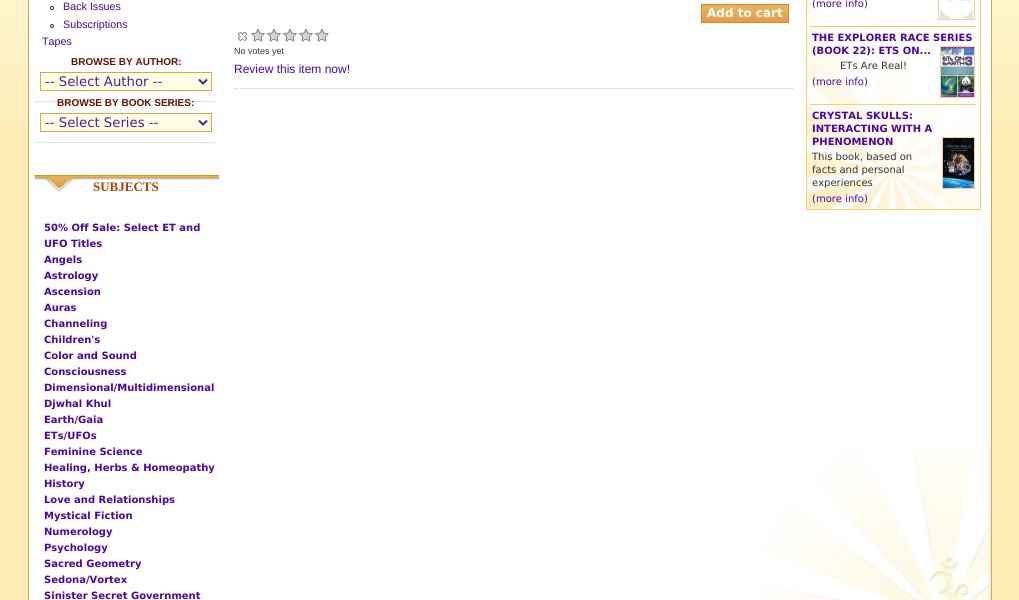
import math
import cairo

surface = cairo.ImageSurface(cairo.FORMAT_RGB24, 1019, 600)
ctx = cairo.Context(surface)
options = cairo.FontOptions()
options.set_hint_metrics(cairo.HINT_METRICS_OFF)
options.set_hint_style(cairo.HINT_STYLE_NONE)
ctx.set_font_options(options)
ctx.set_miter_limit(4)


def set_color(code):
    ctx.set_source_rgb(*(v / 255 for v in bytes.fromhex(code[-6:])))


def draw_text(x, y, s, family, size, color, bold=False, italic=False):
    ctx.select_font_face(family, cairo.FONT_SLANT_ITALIC if italic else cairo.FONT_SLANT_NORMAL, cairo.FONT_WEIGHT_BOLD if bold else cairo.FONT_WEIGHT_NORMAL)
    ctx.set_font_size(size)
    set_color(color)
    ctx.move_to(x, y)
    ctx.show_text(s)


def fill_rect(x, y, w, h, color):
    set_color(color)
    ctx.rectangle(x, y, w, h)
    ctx.fill()


def draw_image(path, x, y, w, h):
    ctx.save()
    ctx.set_source_surface(cairo.ImageSurface.create_from_png(path), x, y)
    ctx.rectangle(x, y, w, h)
    ctx.fill()
    ctx.restore()


set_color("#ffedb6")
ctx.paint()
draw_image("assets/img1.png", 0, 0, 1019, 124)
set_color("#ffffff")
ctx.rectangle(28.5, -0.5, 963, 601)
ctx.fill_preserve()
set_color("#e99e52")
ctx.set_line_width(1)
ctx.stroke()
draw_image("assets/img2.png", 763, 447, 228, 153)
ctx.arc(52, 8, 1.5, 0, 2 * math.pi)
set_color("#333333")
ctx.stroke()
draw_text(63, 10, "Back Issues", "Liberation Sans", 10.75, "#4d04a1")
ctx.new_path()
ctx.arc(52, 26, 1.5, 0, 2 * math.pi)
set_color("#333333")
ctx.stroke()
draw_text(63, 28, "Subscriptions", "Liberation Sans", 10.75, "#4d04a1")
draw_text(42, 45, "Tapes", "Liberation Sans", 10.75, "#4d04a1")
ctx.new_path()
ctx.move_to(36, 101.5)
ctx.line_to(216, 101.5)
set_color("#cccccc")
ctx.set_dash([1, 1])
ctx.stroke()
draw_text(71, 65, "BROWSE BY AUTHOR:", "Liberation Sans", 10, "#651300", bold=True)
set_color("#ffffe4")
ctx.rectangle(40.5, 72.5, 171, 18)
ctx.fill_preserve()
set_color("#e99e53")
ctx.set_dash([])
ctx.stroke()
ctx.new_path()
ctx.move_to(199, 79.5)
ctx.line_to(203, 83.5)
ctx.line_to(207, 79.5)
set_color("#531c94")
ctx.set_line_width(2)
ctx.stroke()
draw_text(45, 86, "-- Select Author --", "DejaVu Sans", 13.25, "#531c94")
ctx.new_path()
ctx.move_to(36, 142.5)
ctx.line_to(216, 142.5)
set_color("#cccccc")
ctx.set_line_width(1)
ctx.set_dash([1, 1])
ctx.stroke()
draw_text(57, 106, "BROWSE BY BOOK SERIES:", "Liberation Sans", 10, "#651300", bold=True)
set_color("#ffffe4")
ctx.rectangle(40.5, 113.5, 171, 18)
ctx.fill_preserve()
set_color("#e99e53")
ctx.set_dash([])
ctx.stroke()
ctx.new_path()
ctx.move_to(199, 120.5)
ctx.line_to(203, 124.5)
ctx.line_to(207, 120.5)
set_color("#531c94")
ctx.set_line_width(2)
ctx.stroke()
draw_text(45, 127, "-- Select Series --", "DejaVu Sans", 13.25, "#531c94")
draw_image("assets/img3.png", 34, 175, 185, 17)
draw_text(93, 191, "SUBJECTS", "Liberation Serif", 13, "#ab4000", bold=True)
draw_text(44, 231, "50% Off Sale: Select ET and", "DejaVu Sans", 10, "#4d04a1", bold=True)
draw_text(44, 247, "UFO Titles", "DejaVu Sans", 10, "#4d04a1", bold=True)
draw_text(44, 263, "Angels", "DejaVu Sans", 10, "#4d04a1", bold=True)
draw_text(44, 279, "Astrology", "DejaVu Sans", 10, "#4d04a1", bold=True)
draw_text(44, 295, "Ascension", "DejaVu Sans", 10, "#4d04a1", bold=True)
draw_text(44, 311, "Auras", "DejaVu Sans", 10, "#4d04a1", bold=True)
draw_text(44, 327, "Channeling", "DejaVu Sans", 10, "#4d04a1", bold=True)
draw_text(44, 343, "Children's", "DejaVu Sans", 10, "#4d04a1", bold=True)
draw_text(44, 359, "Color and Sound", "DejaVu Sans", 10, "#4d04a1", bold=True)
draw_text(44, 375, "Consciousness", "DejaVu Sans", 10, "#4d04a1", bold=True)
draw_text(44, 391, "Dimensional/Multidimensional", "DejaVu Sans", 10, "#4d04a1", bold=True)
draw_text(44, 407, "Djwhal Khul", "DejaVu Sans", 10, "#4d04a1", bold=True)
draw_text(44, 423, "Earth/Gaia", "DejaVu Sans", 10, "#4d04a1", bold=True)
draw_text(44, 439, "ETs/UFOs", "DejaVu Sans", 10, "#4d04a1", bold=True)
draw_text(44, 455, "Feminine Science", "DejaVu Sans", 10, "#4d04a1", bold=True)
draw_text(44, 471, "Healing, Herbs & Homeopathy", "DejaVu Sans", 10, "#4d04a1", bold=True)
draw_text(44, 487, "History", "DejaVu Sans", 10, "#4d04a1", bold=True)
draw_text(44, 503, "Love and Relationships", "DejaVu Sans", 10, "#4d04a1", bold=True)
draw_text(44, 519, "Mystical Fiction", "DejaVu Sans", 10, "#4d04a1", bold=True)
draw_text(44, 535, "Numerology", "DejaVu Sans", 10, "#4d04a1", bold=True)
draw_text(44, 551, "Psychology", "DejaVu Sans", 10, "#4d04a1", bold=True)
draw_text(44, 567, "Sacred Geometry", "DejaVu Sans", 10, "#4d04a1", bold=True)
draw_text(44, 583, "Sedona/Vortex", "DejaVu Sans", 10, "#4d04a1", bold=True)
draw_text(44, 599, "Sinister Secret Government", "DejaVu Sans", 10, "#4d04a1", bold=True)
ctx.new_path()
ctx.move_to(234, 88.5)
ctx.line_to(794, 88.5)
set_color("#cccccc")
ctx.set_line_width(1)
ctx.set_dash([1, 1])
ctx.stroke()
draw_image("assets/img4.png", 702, 5, 86, 17)
ctx.rectangle(701.5, 4.5, 87, 18)
set_color("#db852e")
ctx.set_dash([])
ctx.stroke()
draw_text(707, 17, "Add to cart", "DejaVu Sans", 12, "#ffffff", bold=True)
draw_image("assets/img5.png", 238, 31, 9, 10)
draw_image("assets/img6.png", 251, 29, 14, 13)
draw_image("assets/img6.png", 267, 29, 14, 13)
draw_image("assets/img6.png", 283, 29, 14, 13)
draw_image("assets/img6.png", 299, 29, 14, 13)
draw_image("assets/img6.png", 315, 29, 14, 13)
draw_text(234, 54, "No votes yet", "Liberation Sans", 9, "#333333")
draw_text(234, 73, "Review this item now!", "Liberation Sans", 12, "#4d04a1")
ctx.rectangle(806.5, -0.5, 174, 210)
set_color("#ffcc66")
ctx.stroke()
draw_image("assets/img7.png", 807, 0, 173, 209)
fill_rect(810, 26, 166, 1, "#ffcc66")
draw_text(812, 7, "(more info)", "DejaVu Sans", 10, "#4d04a1")
ctx.rectangle(938.5, -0.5, 36, 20)
set_color("#ffcc99")
ctx.stroke()
draw_image("assets/img8.png", 940, 0, 33, 19)
fill_rect(810, 104, 166, 1, "#ffcc66")
draw_text(812, 41, "THE EXPLORER RACE SERIES", "DejaVu Sans", 10, "#4d04a1", bold=True)
draw_text(812, 54, "(BOOK 22): ETS ON...", "DejaVu Sans", 10, "#4d04a1", bold=True)
ctx.rectangle(940.5, 46.5, 34, 51)
set_color("#ffcc99")
ctx.stroke()
draw_image("assets/img9.png", 941, 47, 33, 50)
draw_text(840, 69, "ETs Are Real!", "DejaVu Sans", 10, "#333333")
draw_text(812, 85, "(more info)", "DejaVu Sans", 10, "#4d04a1")
draw_text(812, 119, "CRYSTAL SKULLS:", "DejaVu Sans", 10, "#4d04a1", bold=True)
draw_text(812, 132, "INTERACTING WITH A", "DejaVu Sans", 10, "#4d04a1", bold=True)
draw_text(812, 145, "PHENOMENON", "DejaVu Sans", 10, "#4d04a1", bold=True)
ctx.rectangle(942.5, 137.5, 32, 51)
set_color("#ffcc99")
ctx.stroke()
draw_image("assets/img10.png", 943, 138, 31, 50)
draw_text(812, 160, "This book, based on", "DejaVu Sans", 10, "#333333")
draw_text(812, 173, "facts and personal", "DejaVu Sans", 10, "#333333")
draw_text(812, 186, "experiences", "DejaVu Sans", 10, "#333333")
draw_text(812, 202, "(more info)", "DejaVu Sans", 10, "#4d04a1")
surface.write_to_png("output.png")
